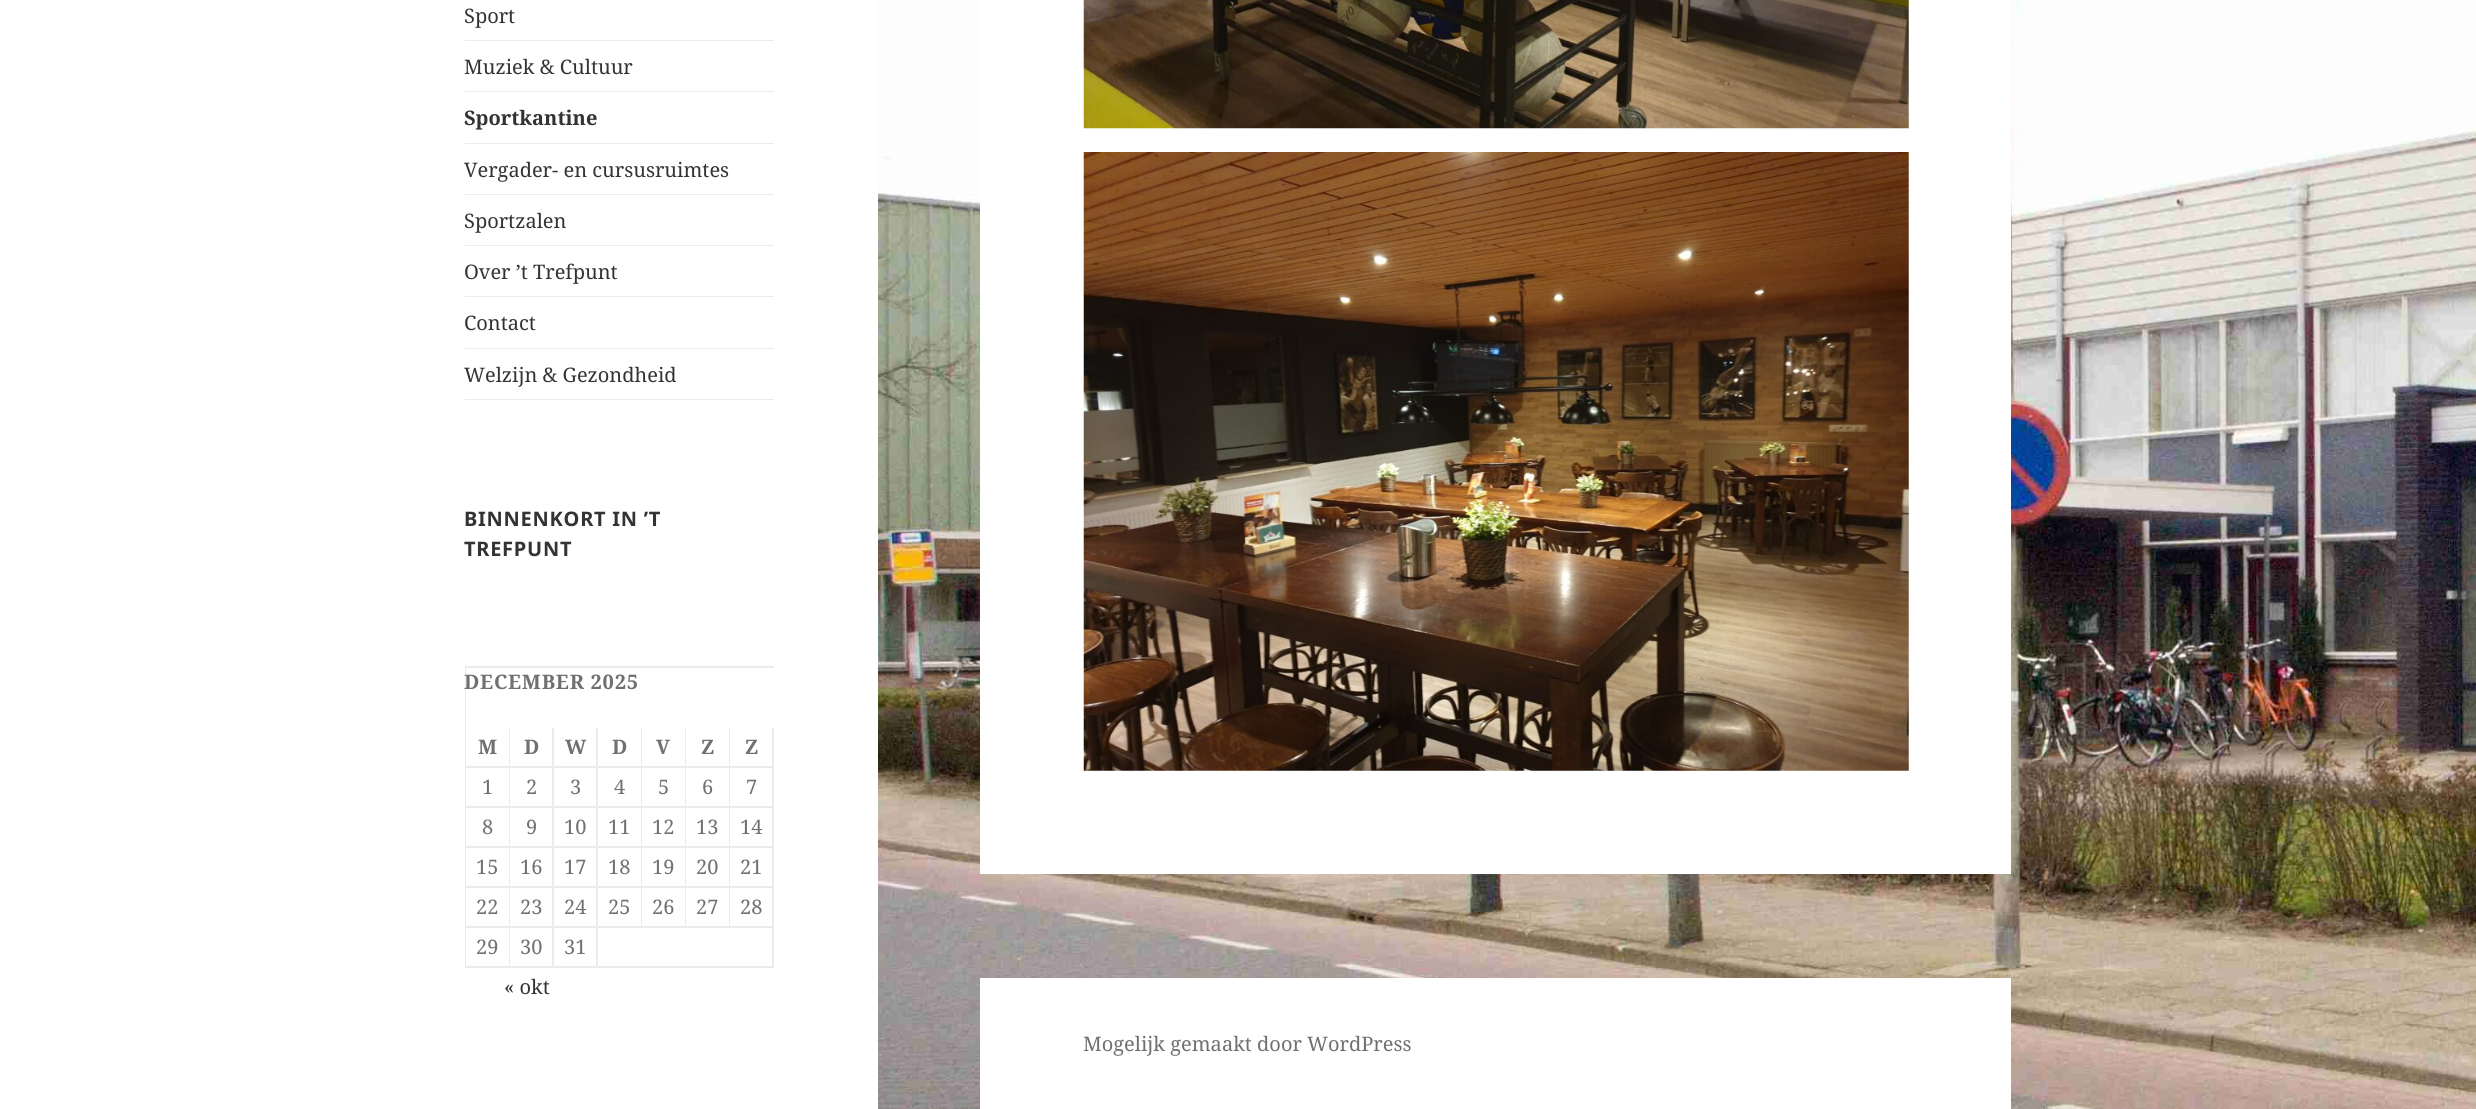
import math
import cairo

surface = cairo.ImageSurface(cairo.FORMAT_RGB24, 2476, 1109)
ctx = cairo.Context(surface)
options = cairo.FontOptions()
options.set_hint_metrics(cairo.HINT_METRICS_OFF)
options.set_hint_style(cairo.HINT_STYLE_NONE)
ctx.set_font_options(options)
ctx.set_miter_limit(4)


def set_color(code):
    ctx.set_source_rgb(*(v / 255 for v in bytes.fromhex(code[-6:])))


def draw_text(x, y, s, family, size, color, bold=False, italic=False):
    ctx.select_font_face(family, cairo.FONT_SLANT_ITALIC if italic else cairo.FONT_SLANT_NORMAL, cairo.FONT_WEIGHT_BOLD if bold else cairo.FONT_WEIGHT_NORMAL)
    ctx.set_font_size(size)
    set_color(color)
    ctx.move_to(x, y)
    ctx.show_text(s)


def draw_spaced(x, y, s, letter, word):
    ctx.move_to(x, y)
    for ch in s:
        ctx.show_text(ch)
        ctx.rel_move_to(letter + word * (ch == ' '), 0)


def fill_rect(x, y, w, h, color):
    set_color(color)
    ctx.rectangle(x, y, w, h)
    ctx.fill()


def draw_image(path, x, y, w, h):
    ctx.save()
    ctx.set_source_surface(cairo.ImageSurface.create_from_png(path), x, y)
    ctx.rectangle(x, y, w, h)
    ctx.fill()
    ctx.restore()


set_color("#ffffff")
ctx.paint()
draw_image("assets/img1.png", 878, 0, 1598, 1109)
fill_rect(465, 399, 309, 1, "#ebebeb")
draw_text(464, 23, "Sport", "Noto Serif", 20, "#333333")
fill_rect(465, 40, 309, 1, "#ebebeb")
draw_text(464, 74, "Muziek & Cultuur", "Noto Serif", 20, "#333333")
fill_rect(465, 91, 309, 1, "#ebebeb")
draw_text(464, 125, "Sportkantine", "Noto Serif", 20, "#333333", bold=True)
fill_rect(465, 143, 309, 1, "#ebebeb")
draw_text(464, 177, "Vergader- en cursusruimtes", "Noto Serif", 20, "#333333")
fill_rect(465, 194, 309, 1, "#ebebeb")
draw_text(464, 228, "Sportzalen", "Noto Serif", 20, "#333333")
fill_rect(465, 245, 309, 1, "#ebebeb")
draw_text(464, 279, "Over ’t Trefpunt", "Noto Serif", 20, "#333333")
fill_rect(465, 296, 309, 1, "#ebebeb")
draw_text(464, 330, "Contact", "Noto Serif", 20, "#333333")
fill_rect(465, 348, 309, 1, "#ebebeb")
draw_text(464, 382, "Welzijn & Gezondheid", "Noto Serif", 20, "#333333")
ctx.select_font_face("Noto Sans", cairo.FONT_SLANT_NORMAL, cairo.FONT_WEIGHT_BOLD)
draw_spaced(464, 526, "BINNENKORT IN ’T", 0.75, 0)
draw_spaced(464, 556, "TREFPUNT", 0.75, 0)
set_color("#ebebeb")
ctx.new_path()
ctx.move_to(465, 666)
ctx.line_to(774, 666)
ctx.line_to(774, 668)
ctx.line_to(466, 668)
ctx.close_path()
ctx.fill()
ctx.set_source_rgba(0.2, 0.2, 0.2, 0.1)
ctx.new_path()
ctx.move_to(465, 968)
ctx.line_to(465, 666)
ctx.line_to(466, 668)
ctx.line_to(466, 968)
ctx.close_path()
ctx.fill()
ctx.select_font_face("Noto Serif", cairo.FONT_SLANT_NORMAL, cairo.FONT_WEIGHT_BOLD)
set_color("#707070")
draw_spaced(464, 689, "DECEMBER 2025", 0.75, 0)
set_color("#ebebeb")
ctx.new_path()
ctx.move_to(510, 728)
ctx.line_to(510, 768)
ctx.line_to(509, 766)
ctx.line_to(509, 728)
ctx.close_path()
ctx.fill()
ctx.set_source_rgba(0.2, 0.2, 0.2, 0.1)
ctx.new_path()
ctx.move_to(510, 768)
ctx.line_to(466, 768)
ctx.line_to(466, 766)
ctx.line_to(509, 766)
ctx.close_path()
ctx.fill()
draw_text(478, 754, "M", "Noto Serif", 20, "#707070", bold=True)
set_color("#ebebeb")
ctx.new_path()
ctx.move_to(554, 728)
ctx.line_to(554, 768)
ctx.line_to(552, 766)
ctx.line_to(552, 728)
ctx.close_path()
ctx.fill()
ctx.set_source_rgba(0.2, 0.2, 0.2, 0.1)
ctx.new_path()
ctx.move_to(554, 768)
ctx.line_to(510, 768)
ctx.line_to(510, 766)
ctx.line_to(552, 766)
ctx.close_path()
ctx.fill()
draw_text(524, 754, "D", "Noto Serif", 20, "#707070", bold=True)
set_color("#ebebeb")
ctx.new_path()
ctx.move_to(598, 728)
ctx.line_to(598, 768)
ctx.line_to(596, 766)
ctx.line_to(596, 728)
ctx.close_path()
ctx.fill()
ctx.set_source_rgba(0.2, 0.2, 0.2, 0.1)
ctx.new_path()
ctx.move_to(598, 768)
ctx.line_to(554, 768)
ctx.line_to(554, 766)
ctx.line_to(596, 766)
ctx.close_path()
ctx.fill()
draw_text(565, 754, "W", "Noto Serif", 20, "#707070", bold=True)
set_color("#ebebeb")
ctx.new_path()
ctx.move_to(642, 728)
ctx.line_to(642, 768)
ctx.line_to(641, 766)
ctx.line_to(641, 728)
ctx.close_path()
ctx.fill()
ctx.set_source_rgba(0.2, 0.2, 0.2, 0.1)
ctx.new_path()
ctx.move_to(642, 768)
ctx.line_to(598, 768)
ctx.line_to(598, 766)
ctx.line_to(641, 766)
ctx.close_path()
ctx.fill()
draw_text(612, 754, "D", "Noto Serif", 20, "#707070", bold=True)
set_color("#ebebeb")
ctx.new_path()
ctx.move_to(686, 728)
ctx.line_to(686, 768)
ctx.line_to(685, 766)
ctx.line_to(685, 728)
ctx.close_path()
ctx.fill()
ctx.set_source_rgba(0.2, 0.2, 0.2, 0.1)
ctx.new_path()
ctx.move_to(686, 768)
ctx.line_to(642, 768)
ctx.line_to(642, 766)
ctx.line_to(685, 766)
ctx.close_path()
ctx.fill()
draw_text(656, 754, "V", "Noto Serif", 20, "#707070", bold=True)
set_color("#ebebeb")
ctx.new_path()
ctx.move_to(730, 728)
ctx.line_to(730, 768)
ctx.line_to(729, 766)
ctx.line_to(729, 728)
ctx.close_path()
ctx.fill()
ctx.set_source_rgba(0.2, 0.2, 0.2, 0.1)
ctx.new_path()
ctx.move_to(730, 768)
ctx.line_to(686, 768)
ctx.line_to(686, 766)
ctx.line_to(729, 766)
ctx.close_path()
ctx.fill()
draw_text(701, 754, "Z", "Noto Serif", 20, "#707070", bold=True)
set_color("#ebebeb")
ctx.new_path()
ctx.move_to(774, 728)
ctx.line_to(774, 768)
ctx.line_to(772, 766)
ctx.line_to(772, 728)
ctx.close_path()
ctx.fill()
ctx.set_source_rgba(0.2, 0.2, 0.2, 0.1)
ctx.new_path()
ctx.move_to(774, 768)
ctx.line_to(730, 768)
ctx.line_to(730, 766)
ctx.line_to(772, 766)
ctx.close_path()
ctx.fill()
draw_text(745, 754, "Z", "Noto Serif", 20, "#707070", bold=True)
set_color("#ebebeb")
ctx.new_path()
ctx.move_to(510, 768)
ctx.line_to(510, 808)
ctx.line_to(509, 806)
ctx.line_to(509, 768)
ctx.close_path()
ctx.fill()
ctx.set_source_rgba(0.2, 0.2, 0.2, 0.1)
ctx.new_path()
ctx.move_to(510, 808)
ctx.line_to(466, 808)
ctx.line_to(466, 806)
ctx.line_to(509, 806)
ctx.close_path()
ctx.fill()
draw_text(482, 794, "1", "Noto Serif", 20, "#707070")
set_color("#ebebeb")
ctx.new_path()
ctx.move_to(554, 768)
ctx.line_to(554, 808)
ctx.line_to(552, 806)
ctx.line_to(552, 768)
ctx.close_path()
ctx.fill()
ctx.set_source_rgba(0.2, 0.2, 0.2, 0.1)
ctx.new_path()
ctx.move_to(554, 808)
ctx.line_to(510, 808)
ctx.line_to(510, 806)
ctx.line_to(552, 806)
ctx.close_path()
ctx.fill()
draw_text(526, 794, "2", "Noto Serif", 20, "#707070")
set_color("#ebebeb")
ctx.new_path()
ctx.move_to(598, 768)
ctx.line_to(598, 808)
ctx.line_to(596, 806)
ctx.line_to(596, 768)
ctx.close_path()
ctx.fill()
ctx.set_source_rgba(0.2, 0.2, 0.2, 0.1)
ctx.new_path()
ctx.move_to(598, 808)
ctx.line_to(554, 808)
ctx.line_to(554, 806)
ctx.line_to(596, 806)
ctx.close_path()
ctx.fill()
draw_text(570, 794, "3", "Noto Serif", 20, "#707070")
set_color("#ebebeb")
ctx.new_path()
ctx.move_to(642, 768)
ctx.line_to(642, 808)
ctx.line_to(641, 806)
ctx.line_to(641, 768)
ctx.close_path()
ctx.fill()
ctx.set_source_rgba(0.2, 0.2, 0.2, 0.1)
ctx.new_path()
ctx.move_to(642, 808)
ctx.line_to(598, 808)
ctx.line_to(598, 806)
ctx.line_to(641, 806)
ctx.close_path()
ctx.fill()
draw_text(614, 794, "4", "Noto Serif", 20, "#707070")
set_color("#ebebeb")
ctx.new_path()
ctx.move_to(686, 768)
ctx.line_to(686, 808)
ctx.line_to(685, 806)
ctx.line_to(685, 768)
ctx.close_path()
ctx.fill()
ctx.set_source_rgba(0.2, 0.2, 0.2, 0.1)
ctx.new_path()
ctx.move_to(686, 808)
ctx.line_to(642, 808)
ctx.line_to(642, 806)
ctx.line_to(685, 806)
ctx.close_path()
ctx.fill()
draw_text(658, 794, "5", "Noto Serif", 20, "#707070")
set_color("#ebebeb")
ctx.new_path()
ctx.move_to(730, 768)
ctx.line_to(730, 808)
ctx.line_to(729, 806)
ctx.line_to(729, 768)
ctx.close_path()
ctx.fill()
ctx.set_source_rgba(0.2, 0.2, 0.2, 0.1)
ctx.new_path()
ctx.move_to(730, 808)
ctx.line_to(686, 808)
ctx.line_to(686, 806)
ctx.line_to(729, 806)
ctx.close_path()
ctx.fill()
draw_text(702, 794, "6", "Noto Serif", 20, "#707070")
set_color("#ebebeb")
ctx.new_path()
ctx.move_to(774, 768)
ctx.line_to(774, 808)
ctx.line_to(772, 806)
ctx.line_to(772, 768)
ctx.close_path()
ctx.fill()
ctx.set_source_rgba(0.2, 0.2, 0.2, 0.1)
ctx.new_path()
ctx.move_to(774, 808)
ctx.line_to(730, 808)
ctx.line_to(730, 806)
ctx.line_to(772, 806)
ctx.close_path()
ctx.fill()
draw_text(746, 794, "7", "Noto Serif", 20, "#707070")
set_color("#ebebeb")
ctx.new_path()
ctx.move_to(510, 808)
ctx.line_to(510, 848)
ctx.line_to(509, 846)
ctx.line_to(509, 808)
ctx.close_path()
ctx.fill()
ctx.set_source_rgba(0.2, 0.2, 0.2, 0.1)
ctx.new_path()
ctx.move_to(510, 848)
ctx.line_to(466, 848)
ctx.line_to(466, 846)
ctx.line_to(509, 846)
ctx.close_path()
ctx.fill()
draw_text(482, 834, "8", "Noto Serif", 20, "#707070")
set_color("#ebebeb")
ctx.new_path()
ctx.move_to(554, 808)
ctx.line_to(554, 848)
ctx.line_to(552, 846)
ctx.line_to(552, 808)
ctx.close_path()
ctx.fill()
ctx.set_source_rgba(0.2, 0.2, 0.2, 0.1)
ctx.new_path()
ctx.move_to(554, 848)
ctx.line_to(510, 848)
ctx.line_to(510, 846)
ctx.line_to(552, 846)
ctx.close_path()
ctx.fill()
draw_text(526, 834, "9", "Noto Serif", 20, "#707070")
set_color("#ebebeb")
ctx.new_path()
ctx.move_to(598, 808)
ctx.line_to(598, 848)
ctx.line_to(596, 846)
ctx.line_to(596, 808)
ctx.close_path()
ctx.fill()
ctx.set_source_rgba(0.2, 0.2, 0.2, 0.1)
ctx.new_path()
ctx.move_to(598, 848)
ctx.line_to(554, 848)
ctx.line_to(554, 846)
ctx.line_to(596, 846)
ctx.close_path()
ctx.fill()
draw_text(564, 834, "10", "Noto Serif", 20, "#707070")
set_color("#ebebeb")
ctx.new_path()
ctx.move_to(642, 808)
ctx.line_to(642, 848)
ctx.line_to(641, 846)
ctx.line_to(641, 808)
ctx.close_path()
ctx.fill()
ctx.set_source_rgba(0.2, 0.2, 0.2, 0.1)
ctx.new_path()
ctx.move_to(642, 848)
ctx.line_to(598, 848)
ctx.line_to(598, 846)
ctx.line_to(641, 846)
ctx.close_path()
ctx.fill()
draw_text(608, 834, "11", "Noto Serif", 20, "#707070")
set_color("#ebebeb")
ctx.new_path()
ctx.move_to(686, 808)
ctx.line_to(686, 848)
ctx.line_to(685, 846)
ctx.line_to(685, 808)
ctx.close_path()
ctx.fill()
ctx.set_source_rgba(0.2, 0.2, 0.2, 0.1)
ctx.new_path()
ctx.move_to(686, 848)
ctx.line_to(642, 848)
ctx.line_to(642, 846)
ctx.line_to(685, 846)
ctx.close_path()
ctx.fill()
draw_text(652, 834, "12", "Noto Serif", 20, "#707070")
set_color("#ebebeb")
ctx.new_path()
ctx.move_to(730, 808)
ctx.line_to(730, 848)
ctx.line_to(729, 846)
ctx.line_to(729, 808)
ctx.close_path()
ctx.fill()
ctx.set_source_rgba(0.2, 0.2, 0.2, 0.1)
ctx.new_path()
ctx.move_to(730, 848)
ctx.line_to(686, 848)
ctx.line_to(686, 846)
ctx.line_to(729, 846)
ctx.close_path()
ctx.fill()
draw_text(696, 834, "13", "Noto Serif", 20, "#707070")
set_color("#ebebeb")
ctx.new_path()
ctx.move_to(774, 808)
ctx.line_to(774, 848)
ctx.line_to(772, 846)
ctx.line_to(772, 808)
ctx.close_path()
ctx.fill()
ctx.set_source_rgba(0.2, 0.2, 0.2, 0.1)
ctx.new_path()
ctx.move_to(774, 848)
ctx.line_to(730, 848)
ctx.line_to(730, 846)
ctx.line_to(772, 846)
ctx.close_path()
ctx.fill()
draw_text(740, 834, "14", "Noto Serif", 20, "#707070")
set_color("#ebebeb")
ctx.new_path()
ctx.move_to(510, 848)
ctx.line_to(510, 888)
ctx.line_to(509, 886)
ctx.line_to(509, 848)
ctx.close_path()
ctx.fill()
ctx.set_source_rgba(0.2, 0.2, 0.2, 0.1)
ctx.new_path()
ctx.move_to(510, 888)
ctx.line_to(466, 888)
ctx.line_to(466, 886)
ctx.line_to(509, 886)
ctx.close_path()
ctx.fill()
draw_text(476, 874, "15", "Noto Serif", 20, "#707070")
set_color("#ebebeb")
ctx.new_path()
ctx.move_to(554, 848)
ctx.line_to(554, 888)
ctx.line_to(552, 886)
ctx.line_to(552, 848)
ctx.close_path()
ctx.fill()
ctx.set_source_rgba(0.2, 0.2, 0.2, 0.1)
ctx.new_path()
ctx.move_to(554, 888)
ctx.line_to(510, 888)
ctx.line_to(510, 886)
ctx.line_to(552, 886)
ctx.close_path()
ctx.fill()
draw_text(520, 874, "16", "Noto Serif", 20, "#707070")
set_color("#ebebeb")
ctx.new_path()
ctx.move_to(598, 848)
ctx.line_to(598, 888)
ctx.line_to(596, 886)
ctx.line_to(596, 848)
ctx.close_path()
ctx.fill()
ctx.set_source_rgba(0.2, 0.2, 0.2, 0.1)
ctx.new_path()
ctx.move_to(598, 888)
ctx.line_to(554, 888)
ctx.line_to(554, 886)
ctx.line_to(596, 886)
ctx.close_path()
ctx.fill()
draw_text(564, 874, "17", "Noto Serif", 20, "#707070")
set_color("#ebebeb")
ctx.new_path()
ctx.move_to(642, 848)
ctx.line_to(642, 888)
ctx.line_to(641, 886)
ctx.line_to(641, 848)
ctx.close_path()
ctx.fill()
ctx.set_source_rgba(0.2, 0.2, 0.2, 0.1)
ctx.new_path()
ctx.move_to(642, 888)
ctx.line_to(598, 888)
ctx.line_to(598, 886)
ctx.line_to(641, 886)
ctx.close_path()
ctx.fill()
draw_text(608, 874, "18", "Noto Serif", 20, "#707070")
set_color("#ebebeb")
ctx.new_path()
ctx.move_to(686, 848)
ctx.line_to(686, 888)
ctx.line_to(685, 886)
ctx.line_to(685, 848)
ctx.close_path()
ctx.fill()
ctx.set_source_rgba(0.2, 0.2, 0.2, 0.1)
ctx.new_path()
ctx.move_to(686, 888)
ctx.line_to(642, 888)
ctx.line_to(642, 886)
ctx.line_to(685, 886)
ctx.close_path()
ctx.fill()
draw_text(652, 874, "19", "Noto Serif", 20, "#707070")
set_color("#ebebeb")
ctx.new_path()
ctx.move_to(730, 848)
ctx.line_to(730, 888)
ctx.line_to(729, 886)
ctx.line_to(729, 848)
ctx.close_path()
ctx.fill()
ctx.set_source_rgba(0.2, 0.2, 0.2, 0.1)
ctx.new_path()
ctx.move_to(730, 888)
ctx.line_to(686, 888)
ctx.line_to(686, 886)
ctx.line_to(729, 886)
ctx.close_path()
ctx.fill()
draw_text(696, 874, "20", "Noto Serif", 20, "#707070")
set_color("#ebebeb")
ctx.new_path()
ctx.move_to(774, 848)
ctx.line_to(774, 888)
ctx.line_to(772, 886)
ctx.line_to(772, 848)
ctx.close_path()
ctx.fill()
ctx.set_source_rgba(0.2, 0.2, 0.2, 0.1)
ctx.new_path()
ctx.move_to(774, 888)
ctx.line_to(730, 888)
ctx.line_to(730, 886)
ctx.line_to(772, 886)
ctx.close_path()
ctx.fill()
draw_text(740, 874, "21", "Noto Serif", 20, "#707070")
set_color("#ebebeb")
ctx.new_path()
ctx.move_to(510, 888)
ctx.line_to(510, 928)
ctx.line_to(509, 926)
ctx.line_to(509, 888)
ctx.close_path()
ctx.fill()
ctx.set_source_rgba(0.2, 0.2, 0.2, 0.1)
ctx.new_path()
ctx.move_to(510, 928)
ctx.line_to(466, 928)
ctx.line_to(466, 926)
ctx.line_to(509, 926)
ctx.close_path()
ctx.fill()
draw_text(476, 914, "22", "Noto Serif", 20, "#707070")
set_color("#ebebeb")
ctx.new_path()
ctx.move_to(554, 888)
ctx.line_to(554, 928)
ctx.line_to(552, 926)
ctx.line_to(552, 888)
ctx.close_path()
ctx.fill()
ctx.set_source_rgba(0.2, 0.2, 0.2, 0.1)
ctx.new_path()
ctx.move_to(554, 928)
ctx.line_to(510, 928)
ctx.line_to(510, 926)
ctx.line_to(552, 926)
ctx.close_path()
ctx.fill()
draw_text(520, 914, "23", "Noto Serif", 20, "#707070")
set_color("#ebebeb")
ctx.new_path()
ctx.move_to(598, 888)
ctx.line_to(598, 928)
ctx.line_to(596, 926)
ctx.line_to(596, 888)
ctx.close_path()
ctx.fill()
ctx.set_source_rgba(0.2, 0.2, 0.2, 0.1)
ctx.new_path()
ctx.move_to(598, 928)
ctx.line_to(554, 928)
ctx.line_to(554, 926)
ctx.line_to(596, 926)
ctx.close_path()
ctx.fill()
draw_text(564, 914, "24", "Noto Serif", 20, "#707070")
set_color("#ebebeb")
ctx.new_path()
ctx.move_to(642, 888)
ctx.line_to(642, 928)
ctx.line_to(641, 926)
ctx.line_to(641, 888)
ctx.close_path()
ctx.fill()
ctx.set_source_rgba(0.2, 0.2, 0.2, 0.1)
ctx.new_path()
ctx.move_to(642, 928)
ctx.line_to(598, 928)
ctx.line_to(598, 926)
ctx.line_to(641, 926)
ctx.close_path()
ctx.fill()
draw_text(608, 914, "25", "Noto Serif", 20, "#707070")
set_color("#ebebeb")
ctx.new_path()
ctx.move_to(686, 888)
ctx.line_to(686, 928)
ctx.line_to(685, 926)
ctx.line_to(685, 888)
ctx.close_path()
ctx.fill()
ctx.set_source_rgba(0.2, 0.2, 0.2, 0.1)
ctx.new_path()
ctx.move_to(686, 928)
ctx.line_to(642, 928)
ctx.line_to(642, 926)
ctx.line_to(685, 926)
ctx.close_path()
ctx.fill()
draw_text(652, 914, "26", "Noto Serif", 20, "#707070")
set_color("#ebebeb")
ctx.new_path()
ctx.move_to(730, 888)
ctx.line_to(730, 928)
ctx.line_to(729, 926)
ctx.line_to(729, 888)
ctx.close_path()
ctx.fill()
ctx.set_source_rgba(0.2, 0.2, 0.2, 0.1)
ctx.new_path()
ctx.move_to(730, 928)
ctx.line_to(686, 928)
ctx.line_to(686, 926)
ctx.line_to(729, 926)
ctx.close_path()
ctx.fill()
draw_text(696, 914, "27", "Noto Serif", 20, "#707070")
set_color("#ebebeb")
ctx.new_path()
ctx.move_to(774, 888)
ctx.line_to(774, 928)
ctx.line_to(772, 926)
ctx.line_to(772, 888)
ctx.close_path()
ctx.fill()
ctx.set_source_rgba(0.2, 0.2, 0.2, 0.1)
ctx.new_path()
ctx.move_to(774, 928)
ctx.line_to(730, 928)
ctx.line_to(730, 926)
ctx.line_to(772, 926)
ctx.close_path()
ctx.fill()
draw_text(740, 914, "28", "Noto Serif", 20, "#707070")
set_color("#ebebeb")
ctx.new_path()
ctx.move_to(510, 928)
ctx.line_to(510, 968)
ctx.line_to(509, 966)
ctx.line_to(509, 928)
ctx.close_path()
ctx.fill()
ctx.set_source_rgba(0.2, 0.2, 0.2, 0.1)
ctx.new_path()
ctx.move_to(510, 968)
ctx.line_to(466, 968)
ctx.line_to(466, 966)
ctx.line_to(509, 966)
ctx.close_path()
ctx.fill()
draw_text(476, 954, "29", "Noto Serif", 20, "#707070")
set_color("#ebebeb")
ctx.new_path()
ctx.move_to(554, 928)
ctx.line_to(554, 968)
ctx.line_to(552, 966)
ctx.line_to(552, 928)
ctx.close_path()
ctx.fill()
ctx.set_source_rgba(0.2, 0.2, 0.2, 0.1)
ctx.new_path()
ctx.move_to(554, 968)
ctx.line_to(510, 968)
ctx.line_to(510, 966)
ctx.line_to(552, 966)
ctx.close_path()
ctx.fill()
draw_text(520, 954, "30", "Noto Serif", 20, "#707070")
set_color("#ebebeb")
ctx.new_path()
ctx.move_to(598, 928)
ctx.line_to(598, 968)
ctx.line_to(596, 966)
ctx.line_to(596, 928)
ctx.close_path()
ctx.fill()
ctx.set_source_rgba(0.2, 0.2, 0.2, 0.1)
ctx.new_path()
ctx.move_to(598, 968)
ctx.line_to(554, 968)
ctx.line_to(554, 966)
ctx.line_to(596, 966)
ctx.close_path()
ctx.fill()
draw_text(564, 954, "31", "Noto Serif", 20, "#707070")
set_color("#ebebeb")
ctx.new_path()
ctx.move_to(774, 928)
ctx.line_to(774, 968)
ctx.line_to(772, 966)
ctx.line_to(772, 928)
ctx.close_path()
ctx.fill()
ctx.set_source_rgba(0.2, 0.2, 0.2, 0.1)
ctx.new_path()
ctx.move_to(774, 968)
ctx.line_to(598, 968)
ctx.line_to(598, 966)
ctx.line_to(772, 966)
ctx.close_path()
ctx.fill()
draw_text(504, 994, "« okt", "Noto Serif", 20, "#333333")
fill_rect(980, 0, 1031, 874, "#ffffff")
draw_image("assets/img2.png", 1083, 0, 826, 129)
draw_image("assets/img3.png", 1083, 152, 826, 619)
fill_rect(980, 978, 1031, 131, "#ffffff")
draw_text(1083, 1051, "Mogelijk gemaakt door WordPress", "Noto Serif", 20, "#707070")
surface.write_to_png("output.png")
